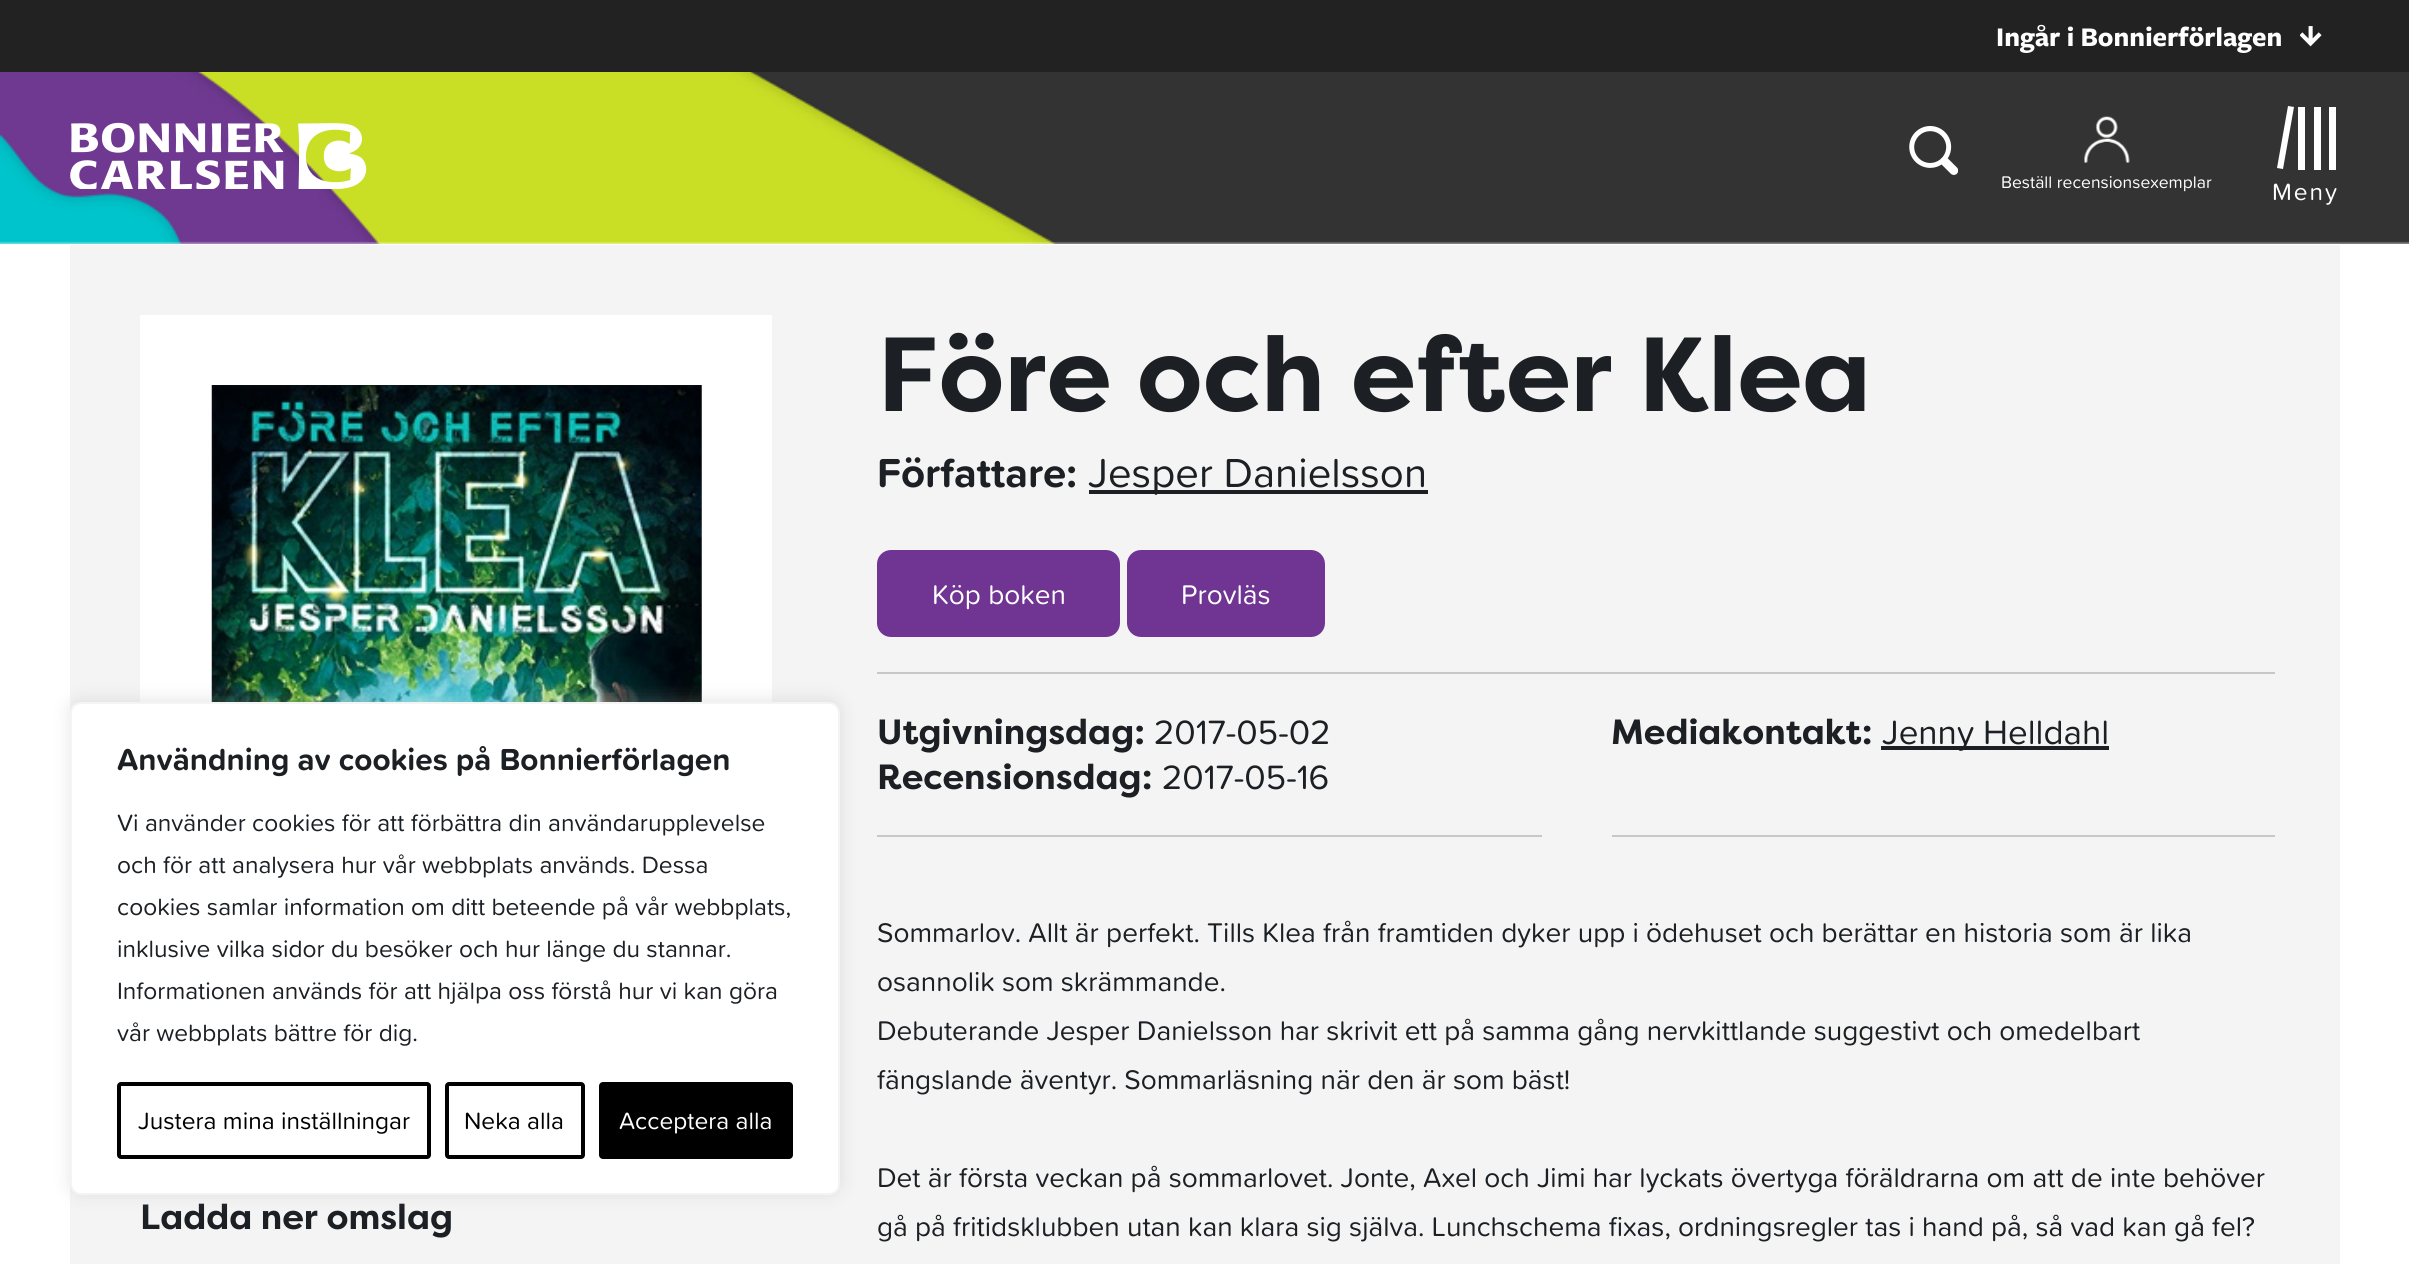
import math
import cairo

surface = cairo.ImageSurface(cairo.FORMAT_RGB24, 2409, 1264)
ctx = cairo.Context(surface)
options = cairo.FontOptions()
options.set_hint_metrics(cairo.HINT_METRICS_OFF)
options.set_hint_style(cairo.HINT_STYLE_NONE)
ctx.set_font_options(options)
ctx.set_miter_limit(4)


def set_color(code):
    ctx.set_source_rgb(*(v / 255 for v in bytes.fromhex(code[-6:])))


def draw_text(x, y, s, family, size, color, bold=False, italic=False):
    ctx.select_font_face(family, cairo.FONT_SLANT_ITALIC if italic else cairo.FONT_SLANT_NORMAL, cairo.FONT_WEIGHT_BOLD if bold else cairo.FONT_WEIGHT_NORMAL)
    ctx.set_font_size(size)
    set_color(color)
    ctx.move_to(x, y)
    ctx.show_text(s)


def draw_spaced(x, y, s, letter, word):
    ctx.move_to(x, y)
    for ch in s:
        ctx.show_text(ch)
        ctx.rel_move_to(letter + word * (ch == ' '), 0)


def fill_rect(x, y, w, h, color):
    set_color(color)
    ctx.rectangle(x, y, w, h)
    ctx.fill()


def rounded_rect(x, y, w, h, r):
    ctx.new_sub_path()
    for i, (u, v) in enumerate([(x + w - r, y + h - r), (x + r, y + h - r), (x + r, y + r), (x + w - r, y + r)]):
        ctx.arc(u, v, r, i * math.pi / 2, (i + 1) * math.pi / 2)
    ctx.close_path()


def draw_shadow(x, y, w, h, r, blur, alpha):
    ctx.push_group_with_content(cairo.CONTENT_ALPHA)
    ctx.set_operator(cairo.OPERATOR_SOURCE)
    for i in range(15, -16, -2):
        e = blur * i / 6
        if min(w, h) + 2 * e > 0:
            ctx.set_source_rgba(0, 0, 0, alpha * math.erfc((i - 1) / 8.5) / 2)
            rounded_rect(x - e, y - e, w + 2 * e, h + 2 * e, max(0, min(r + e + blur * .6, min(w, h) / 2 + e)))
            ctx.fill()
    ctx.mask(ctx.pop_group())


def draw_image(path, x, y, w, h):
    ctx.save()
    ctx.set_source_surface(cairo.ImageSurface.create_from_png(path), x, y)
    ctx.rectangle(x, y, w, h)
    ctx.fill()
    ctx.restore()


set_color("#ffffff")
ctx.paint()
fill_rect(0, 0, 2409, 72, "#222222")
draw_text(1996, 46, "Ingår i Bonnierförlagen", "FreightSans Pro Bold", 28, "#ffffff", bold=True)
draw_image("assets/img1.png", 2300, 26, 22, 21)
draw_image("assets/img2.png", 0, 72, 2409, 172)
draw_image("assets/img3.png", 70, 122, 297, 67)
draw_image("assets/img4.png", 1909, 126, 49, 49)
draw_image("assets/img5.png", 2084, 116, 46, 47)
draw_text(2001, 188, "Beställ recensionsexemplar", "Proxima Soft", 17.5, "#ffffff")
ctx.new_path()
ctx.move_to(2288, 106)
ctx.line_to(2294, 107)
ctx.line_to(2283, 169)
ctx.line_to(2277, 168)
ctx.close_path()
ctx.fill()
fill_rect(2298, 107, 7, 63, "#ffffff")
fill_rect(2314, 107, 7, 63, "#ffffff")
fill_rect(2329, 107, 7, 63, "#ffffff")
ctx.set_font_size(24.5)
draw_spaced(2272, 200, "Meny", 2, 0)
fill_rect(70, 245, 2270, 1019, "#f4f4f4")
fill_rect(140, 315, 632, 387, "#ffffff")
draw_image("assets/img6.png", 211, 385, 491, 317)
draw_text(140, 1229, "Ladda ner omslag", "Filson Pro", 35, "#1c2024", bold=True)
fill_rect(877, 672, 1398, 2, "#c7c7c7")
draw_text(877, 411, "Före och efter Klea", "Filson Pro", 105, "#1c2024", bold=True)
draw_text(877, 487, "Författare:", "Proxima Soft", 42, "#1c2024", bold=True)
fill_rect(1089, 490, 339, 4, "#1c2024")
draw_text(1088, 487, "Jesper Danielsson", "Proxima Soft", 42, "#1c2024")
set_color("#703593")
rounded_rect(877, 550, 243, 87, 14)
ctx.fill()
draw_text(932, 604, "Köp boken", "Proxima Soft", 28, "#ffffff")
set_color("#703593")
rounded_rect(1127, 550, 198, 87, 14)
ctx.fill()
draw_text(1181, 604, "Provläs", "Proxima Soft", 28, "#ffffff")
fill_rect(877, 835, 665, 2, "#c7c7c7")
draw_text(877, 744, "Utgivningsdag:", "Filson Pro", 35, "#1c2024", bold=True)
draw_text(1154, 744, "2017-05-02", "Proxima Soft", 35, "#1c2024")
draw_text(877, 789, "Recensionsdag:", "Filson Pro", 35, "#1c2024", bold=True)
draw_text(1162, 789, "2017-05-16", "Proxima Soft", 35, "#1c2024")
fill_rect(1612, 835, 663, 2, "#c7c7c7")
draw_text(1611, 744, "Mediakontakt:", "Filson Pro", 35, "#1c2024", bold=True)
fill_rect(1881, 746, 228, 4, "#1c2024")
draw_text(1882, 744, "Jenny Helldahl", "Proxima Soft", 35, "#1c2024")
draw_text(877, 942, "Sommarlov. Allt är perfekt. Tills Klea från framtiden dyker upp i ödehuset och berättar en historia som är lika", "Proxima Soft", 28, "#1c2024")
draw_text(877, 991, "osannolik som skrämmande.", "Proxima Soft", 28, "#1c2024")
draw_text(877, 1040, "Debuterande Jesper Danielsson har skrivit ett på samma gång nervkittlande suggestivt och omedelbart", "Proxima Soft", 28, "#1c2024")
draw_text(877, 1089, "fängslande äventyr. Sommarläsning när den är som bäst!", "Proxima Soft", 28, "#1c2024")
draw_text(877, 1187, "Det är första veckan på sommarlovet. Jonte, Axel och Jimi har lyckats övertyga föräldrarna om att de inte behöver", "Proxima Soft", 28, "#1c2024")
draw_text(877, 1236, "gå på fritidsklubben utan kan klara sig själva. Lunchschema fixas, ordningsregler tas i hand på, så vad kan gå fel?", "Proxima Soft", 28, "#1c2024")
set_color("#acabab")
draw_shadow(70, 700, 770, 494, 11, 9, 0.3)
set_color("#ffffff")
rounded_rect(71, 703, 768, 491, 10)
ctx.fill_preserve()
set_color("#f4f4f4")
ctx.stroke()
draw_text(117, 770, "Användning av cookies på Bonnierförlagen", "Proxima Soft", 31.5, "#1c2024", bold=True)
draw_text(117, 831, "Vi använder cookies för att förbättra din användarupplevelse", "Proxima Soft", 24.5, "#1c2024")
draw_text(117, 873, "och för att analysera hur vår webbplats används. Dessa", "Proxima Soft", 24.5, "#1c2024")
draw_text(117, 915, "cookies samlar information om ditt beteende på vår webbplats,", "Proxima Soft", 24.5, "#1c2024")
draw_text(117, 957, "inklusive vilka sidor du besöker och hur länge du stannar.", "Proxima Soft", 24.5, "#1c2024")
draw_text(117, 999, "Informationen används för att hjälpa oss förstå hur vi kan göra", "Proxima Soft", 24.5, "#1c2024")
draw_text(117, 1041, "vår webbplats bättre för dig.", "Proxima Soft", 24.5, "#1c2024")
rounded_rect(119, 1084, 310, 73, 2)
set_color("#000000")
ctx.set_line_width(4)
ctx.stroke()
draw_text(138, 1129, "Justera mina inställningar", "Proxima Soft", 24.5, "#000000")
rounded_rect(447, 1084, 136, 73, 2)
ctx.stroke()
draw_text(464, 1129, "Neka alla", "Proxima Soft", 24.5, "#000000")
rounded_rect(601, 1084, 190, 73, 2)
ctx.fill_preserve()
ctx.stroke()
draw_text(619, 1129, "Acceptera alla", "Proxima Soft", 24.5, "#ffffff")
surface.write_to_png("output.png")
